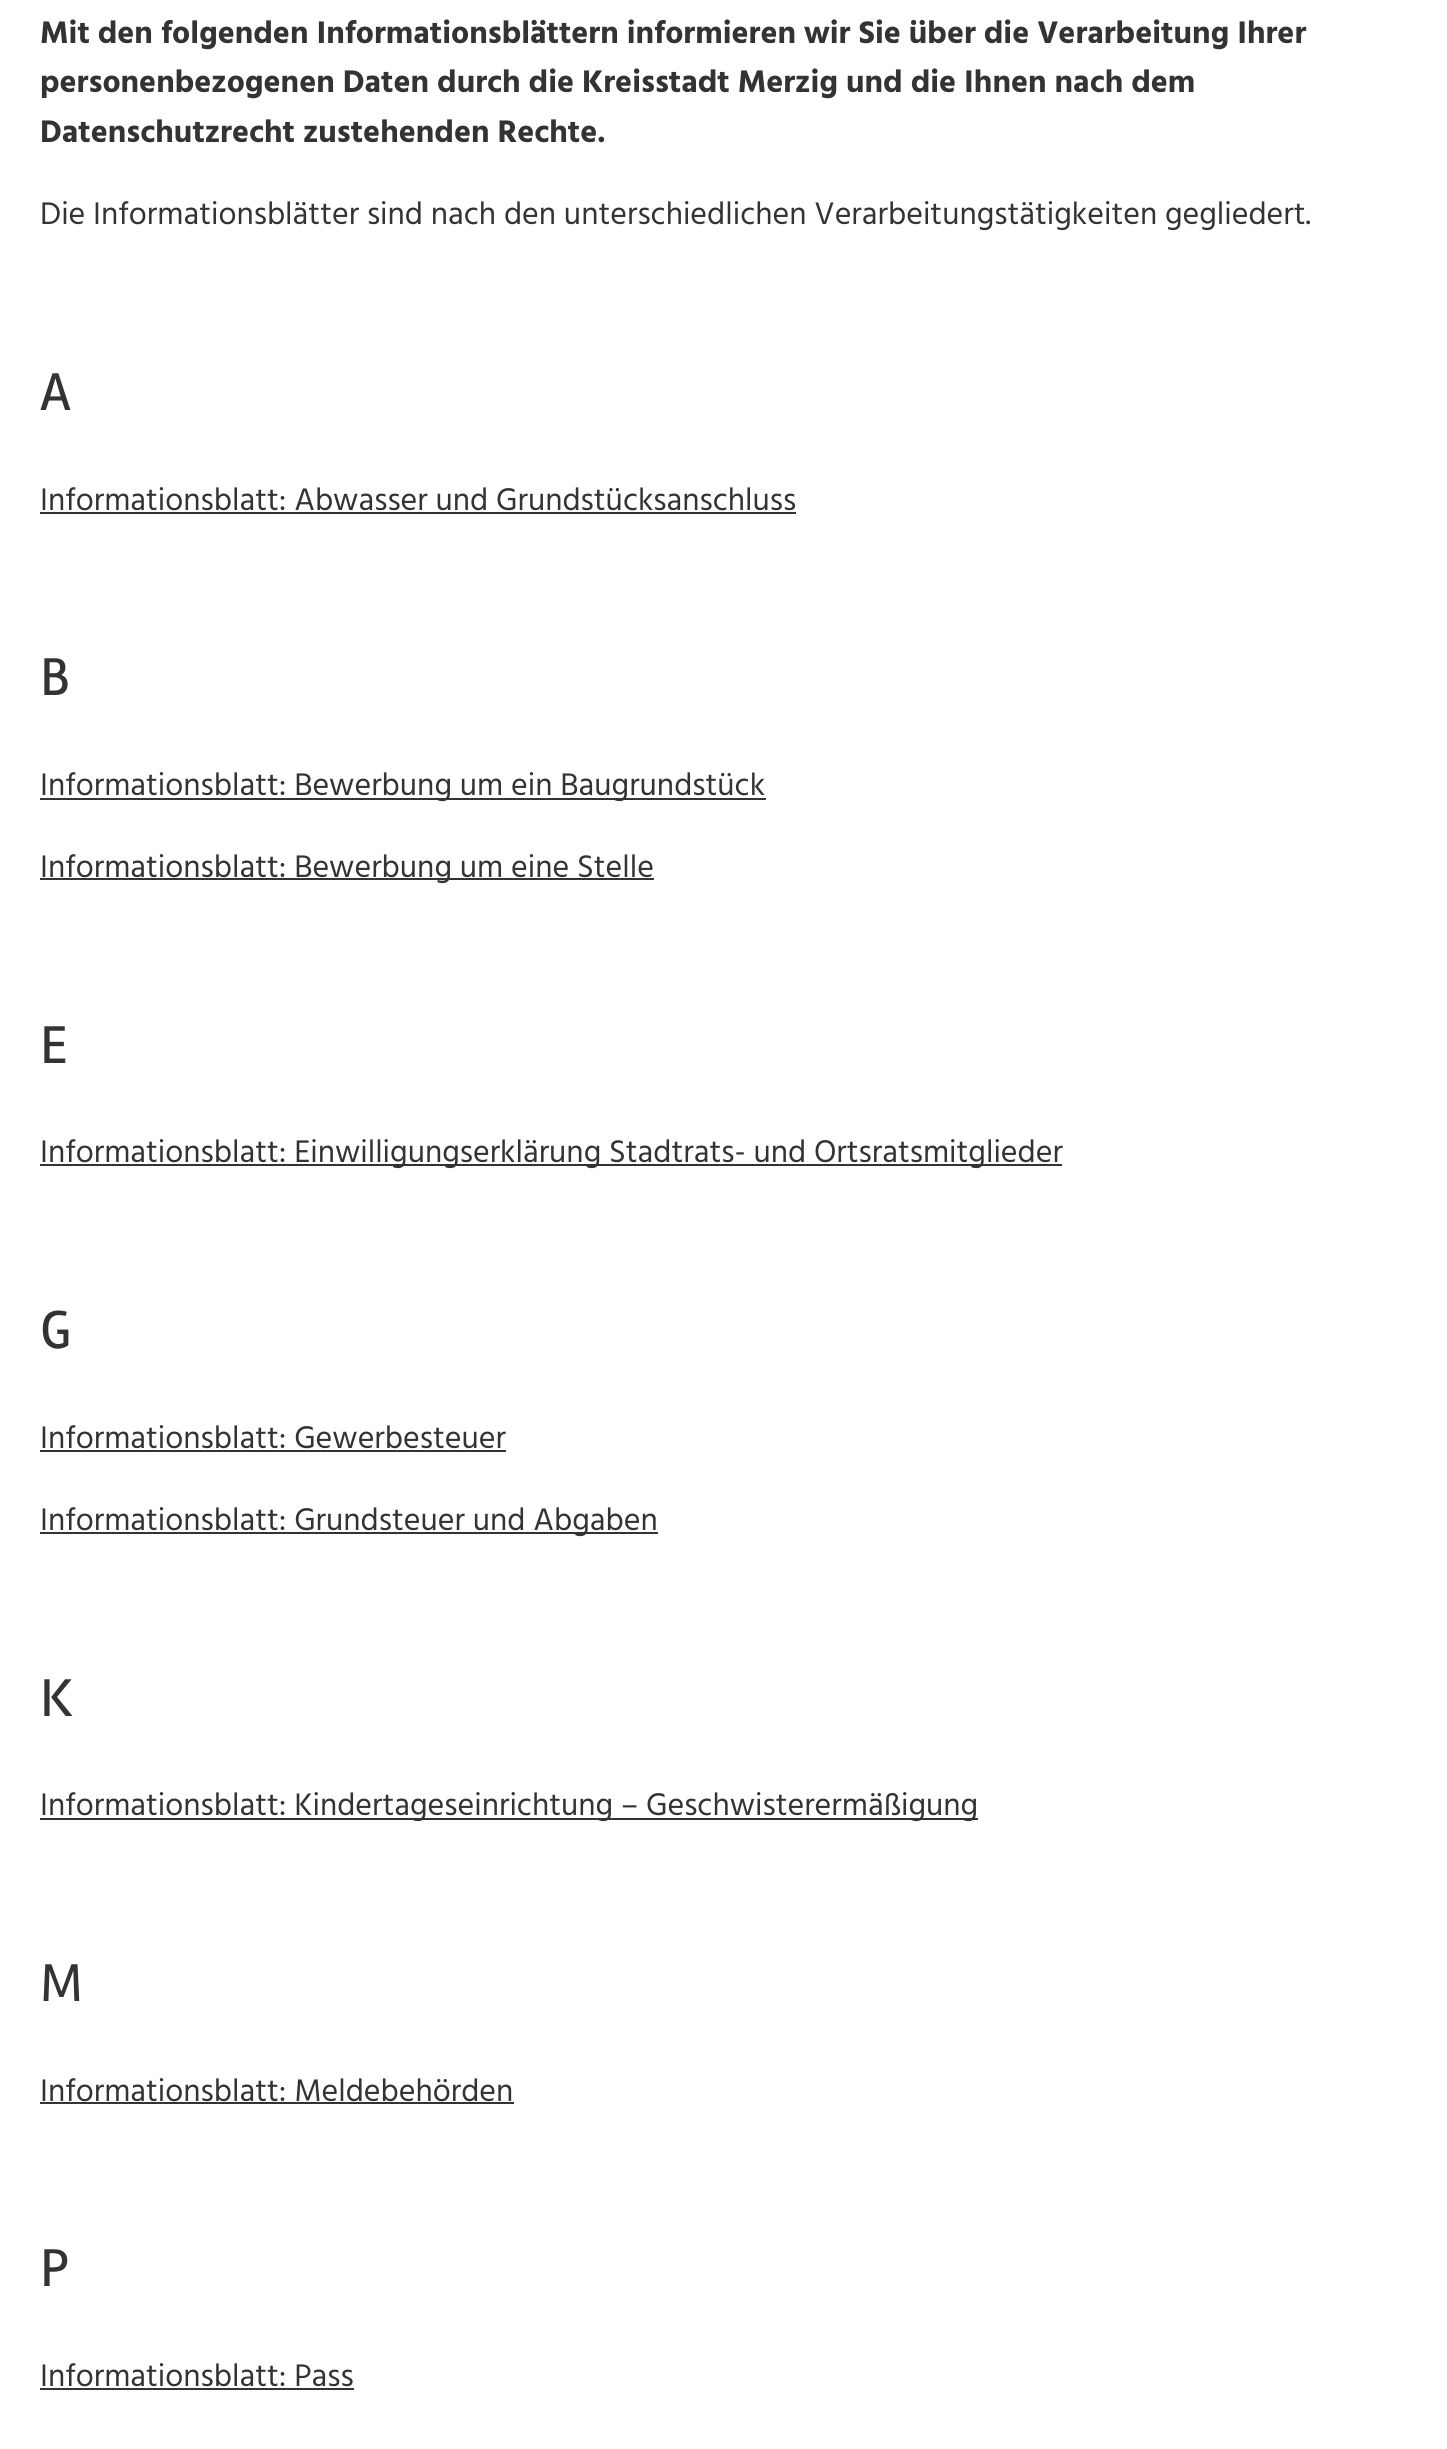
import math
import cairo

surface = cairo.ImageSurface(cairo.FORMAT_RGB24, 1447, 2449)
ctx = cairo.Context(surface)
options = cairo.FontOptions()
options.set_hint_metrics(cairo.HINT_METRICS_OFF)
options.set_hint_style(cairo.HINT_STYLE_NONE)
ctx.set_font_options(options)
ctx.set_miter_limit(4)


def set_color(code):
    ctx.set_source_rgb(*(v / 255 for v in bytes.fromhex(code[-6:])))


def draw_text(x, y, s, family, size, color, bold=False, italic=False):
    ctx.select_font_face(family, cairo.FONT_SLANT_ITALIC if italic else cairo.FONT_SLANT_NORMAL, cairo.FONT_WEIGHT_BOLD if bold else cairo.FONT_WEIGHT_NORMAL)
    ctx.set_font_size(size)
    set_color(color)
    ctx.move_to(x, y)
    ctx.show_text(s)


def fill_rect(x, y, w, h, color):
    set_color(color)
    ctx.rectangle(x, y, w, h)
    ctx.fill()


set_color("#ffffff")
ctx.paint()
draw_text(40, 43, "Mit den folgenden Informationsblättern informieren wir Sie über die Verarbeitung Ihrer", "Hind", 32, "#333333", bold=True)
draw_text(40, 92, "personenbezogenen Daten durch die Kreisstadt Merzig und die Ihnen nach dem", "Hind", 32, "#333333", bold=True)
draw_text(40, 142, "Datenschutzrecht zustehenden Rechte.", "Hind", 32, "#333333", bold=True)
draw_text(40, 224, "Die Informationsblätter sind nach den unterschiedlichen Verarbeitungstätigkeiten gegliedert.", "Hind", 32, "#333333")
draw_text(40, 410, "A", "Rambla", 55, "#333333")
draw_text(40, 510, "Informationsblatt: Abwasser und Grundstücksanschluss", "Hind", 32, "#333333")
fill_rect(40, 512, 756, 2, "#333333")
draw_text(40, 695, "B", "Rambla", 55, "#333333")
fill_rect(40, 798, 726, 2, "#333333")
draw_text(40, 795, "Informationsblatt: Bewerbung um ein Baugrundstück", "Hind", 32, "#333333")
fill_rect(40, 878, 614, 2, "#333333")
draw_text(40, 877, "Informationsblatt: Bewerbung um eine Stelle", "Hind", 32, "#333333")
draw_text(40, 1063, "E", "Rambla", 55, "#333333")
fill_rect(40, 1164, 1022, 2, "#333333")
draw_text(40, 1162, "Informationsblatt: Einwilligungserklärung Stadtrats- und Ortsratsmitglieder", "Hind", 32, "#333333")
draw_text(40, 1348, "G", "Rambla", 55, "#333333")
draw_text(40, 1448, "Informationsblatt: Gewerbesteuer", "Hind", 32, "#333333")
fill_rect(40, 1450, 466, 2, "#333333")
fill_rect(40, 1532, 618, 2, "#333333")
draw_text(40, 1530, "Informationsblatt: Grundsteuer und Abgaben", "Hind", 32, "#333333")
draw_text(40, 1716, "K", "Rambla", 55, "#333333")
fill_rect(40, 1818, 938, 2, "#333333")
draw_text(40, 1815, "Informationsblatt: Kindertageseinrichtung – Geschwisterermäßigung", "Hind", 32, "#333333")
draw_text(40, 2001, "M", "Rambla", 55, "#333333")
draw_text(40, 2101, "Informationsblatt: Meldebehörden", "Hind", 32, "#333333")
fill_rect(40, 2102, 474, 2, "#333333")
draw_text(40, 2286, "P", "Rambla", 55, "#333333")
draw_text(40, 2386, "Informationsblatt: Pass", "Hind", 32, "#333333")
fill_rect(40, 2388, 314, 2, "#333333")
surface.write_to_png("output.png")
